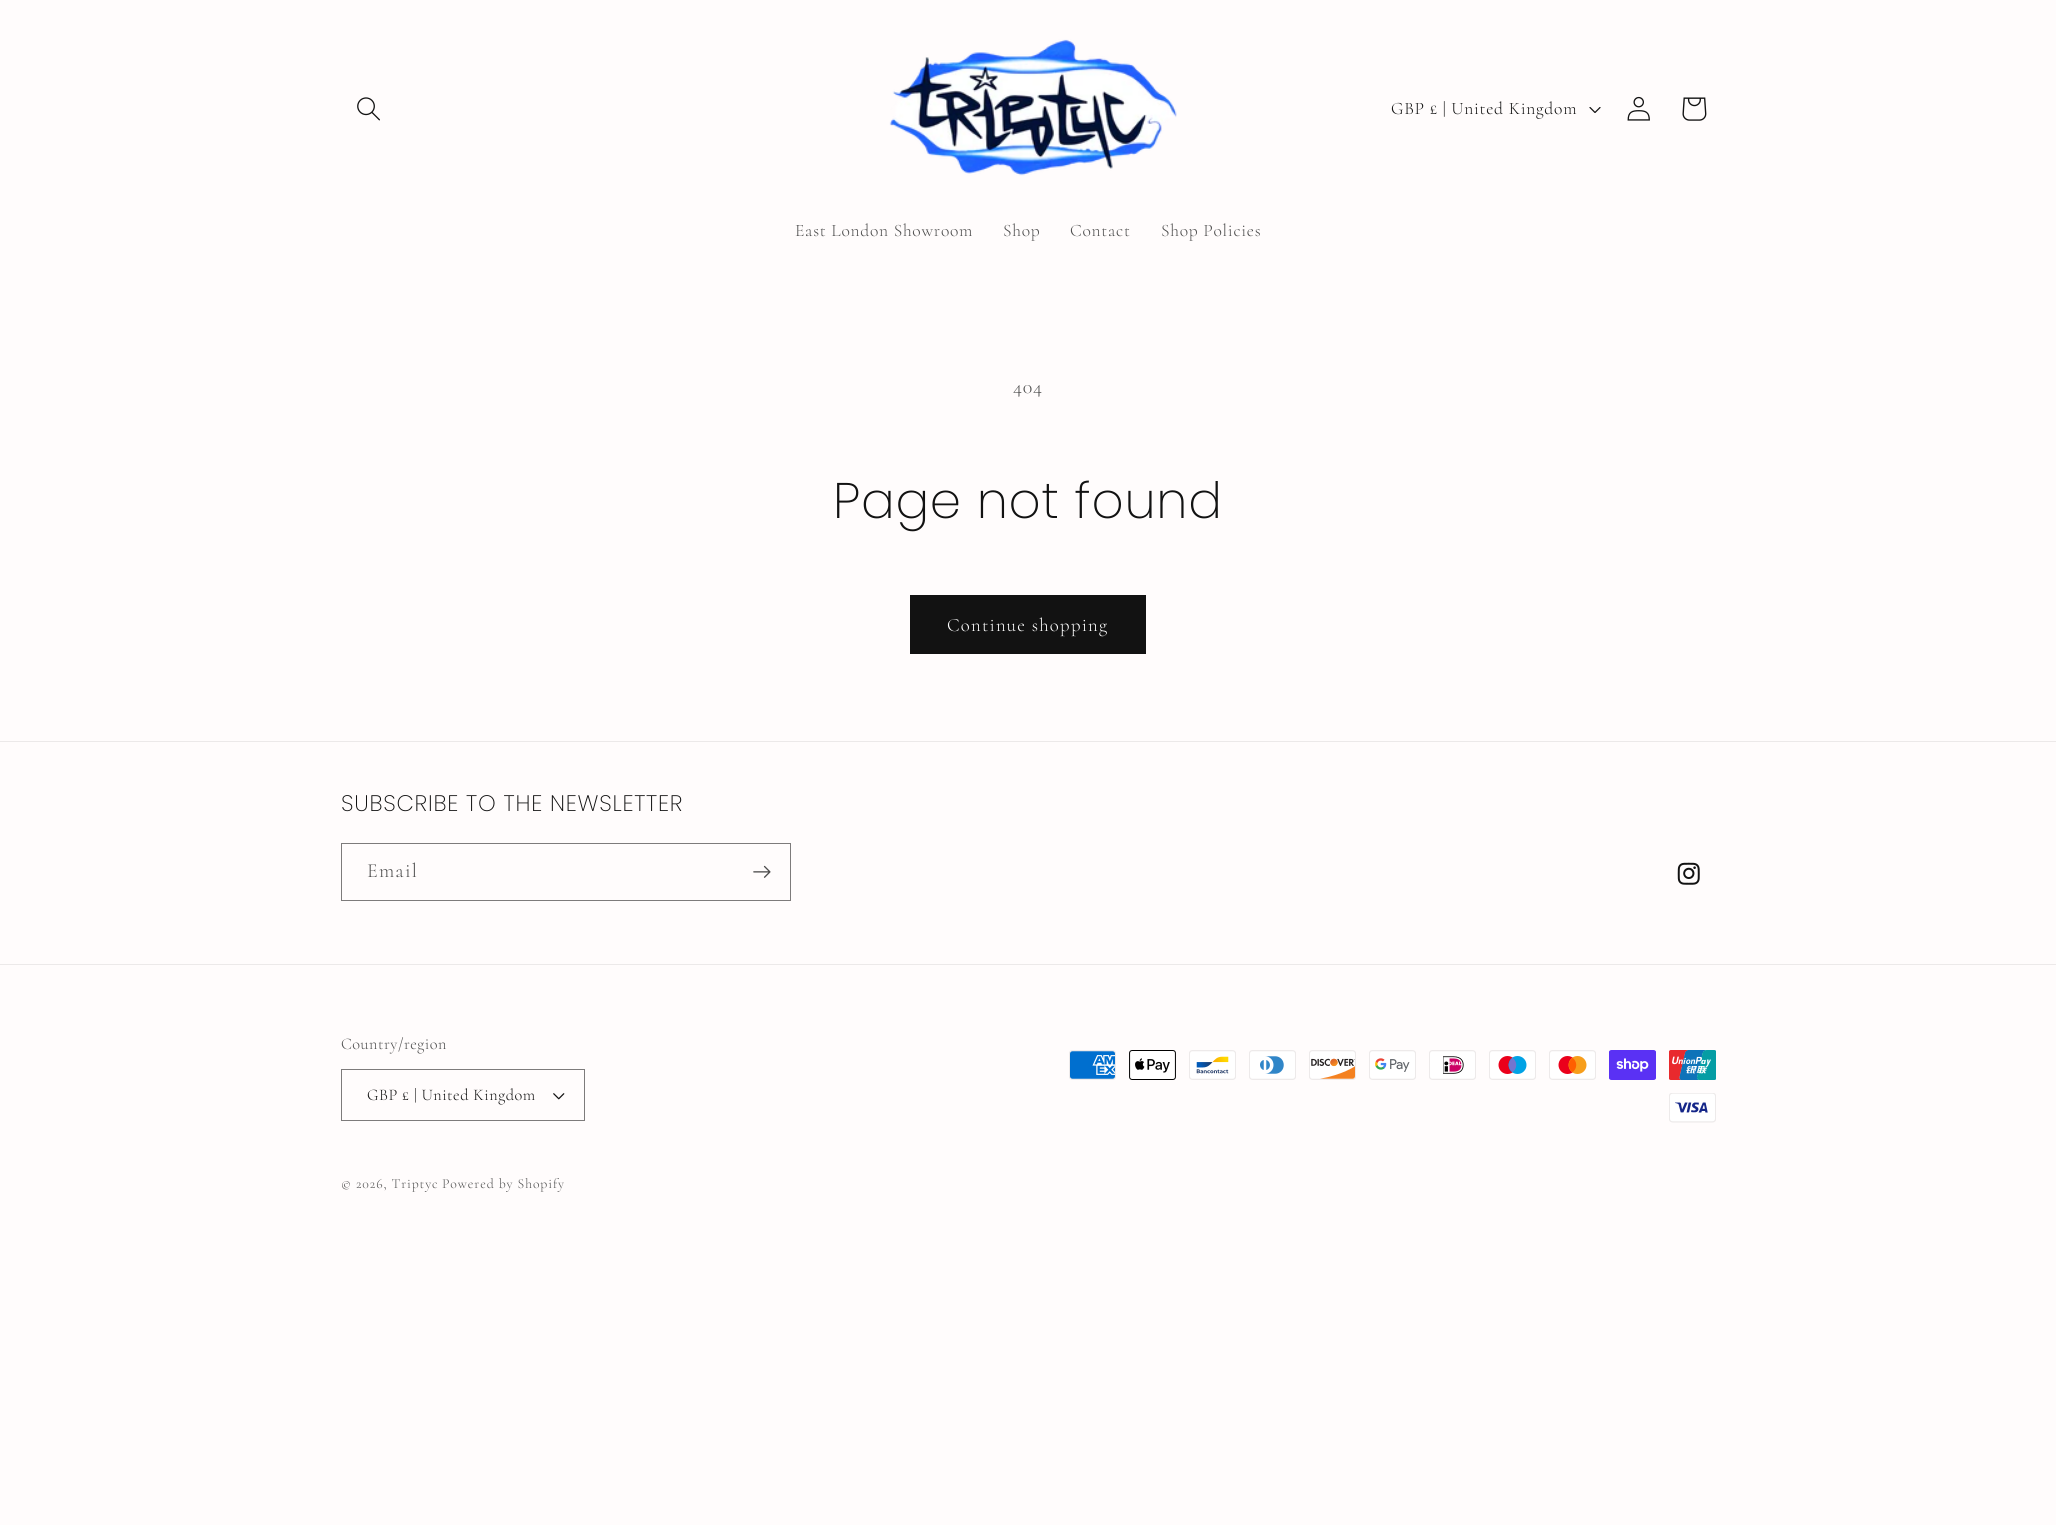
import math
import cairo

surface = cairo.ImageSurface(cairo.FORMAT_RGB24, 2056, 1525)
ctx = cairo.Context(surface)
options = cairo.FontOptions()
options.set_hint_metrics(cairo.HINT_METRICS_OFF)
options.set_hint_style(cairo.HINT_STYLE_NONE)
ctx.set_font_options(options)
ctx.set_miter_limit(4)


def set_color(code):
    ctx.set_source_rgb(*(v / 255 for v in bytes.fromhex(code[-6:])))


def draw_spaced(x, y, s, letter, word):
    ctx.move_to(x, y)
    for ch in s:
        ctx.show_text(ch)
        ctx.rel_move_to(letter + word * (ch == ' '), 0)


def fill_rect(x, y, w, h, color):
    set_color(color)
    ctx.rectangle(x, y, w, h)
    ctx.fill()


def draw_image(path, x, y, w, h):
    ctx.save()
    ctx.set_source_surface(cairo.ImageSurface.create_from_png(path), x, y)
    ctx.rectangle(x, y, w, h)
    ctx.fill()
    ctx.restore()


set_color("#fffcfc")
ctx.paint()
draw_image("assets/img1.png", 357, 97, 23, 24)
draw_image("assets/img2.png", 889, 39, 288, 137)
ctx.select_font_face("Cormorant Light")
ctx.set_font_size(17.5)
set_color("#121212")
draw_spaced(1391, 114, "GBP £ | United Kingdom", 0.75, 0)
draw_image("assets/img3.png", 1589, 107, 12, 6)
draw_image("assets/img4.png", 1627, 96, 23, 25)
draw_image("assets/img5.png", 1682, 97, 25, 24)
set_color("#4d4d4d")
draw_spaced(795, 236, "East London Showroom", 0.75, 0)
draw_spaced(1003, 236, "Shop", 0.75, 0)
draw_spaced(1070, 236, "Contact", 0.75, 0)
draw_spaced(1161, 236, "Shop Policies", 0.75, 0)
ctx.set_font_size(20)
draw_spaced(1013, 393, "404", 0.75, 0)
ctx.select_font_face("Poppins Light")
ctx.set_font_size(50)
set_color("#121212")
draw_spaced(833, 518, "Page not found", 0.75, 0)
fill_rect(910, 595, 236, 59, "#121212")
ctx.select_font_face("Cormorant Light")
ctx.set_font_size(18.75)
set_color("#ffffff")
draw_spaced(947, 631, "Continue shopping", 1.25, 0)
fill_rect(0, 741, 2056, 1, "#ece9e9")
ctx.select_font_face("Poppins Light")
ctx.set_font_size(22.5)
set_color("#121212")
draw_spaced(341, 811, "SUBSCRIBE TO THE NEWSLETTER", 0.75, 0)
ctx.rectangle(341.5, 843.5, 449, 57)
set_color("#7d7b7b")
ctx.set_line_width(1)
ctx.stroke()
ctx.select_font_face("Cormorant Light")
ctx.set_font_size(20)
set_color("#4d4d4d")
draw_spaced(367, 877, "Email", 1.25, 0)
draw_image("assets/img6.png", 753, 865, 18, 13)
draw_image("assets/img7.png", 1677, 862, 23, 23)
fill_rect(0, 964, 2056, 1, "#ece9e9")
ctx.set_font_size(16.25)
set_color("#4d4d4d")
draw_spaced(341, 1049, "Country/region", 0.5, 0)
draw_image("assets/img8.png", 553, 1093, 12, 7)
ctx.rectangle(341.5, 1069.5, 243, 51)
set_color("#7d7b7b")
ctx.stroke()
set_color("#121212")
draw_spaced(367, 1100, "GBP £ | United Kingdom", 0.5, 0)
draw_image("assets/img9.png", 1069, 1050, 47, 30)
draw_image("assets/img10.png", 1129, 1050, 47, 30)
draw_image("assets/img11.png", 1189, 1050, 47, 30)
draw_image("assets/img12.png", 1249, 1050, 47, 30)
draw_image("assets/img13.png", 1309, 1050, 47, 30)
draw_image("assets/img14.png", 1369, 1050, 47, 30)
draw_image("assets/img15.png", 1429, 1050, 47, 30)
draw_image("assets/img16.png", 1489, 1050, 47, 30)
draw_image("assets/img17.png", 1549, 1050, 47, 30)
draw_image("assets/img18.png", 1609, 1050, 47, 30)
draw_image("assets/img19.png", 1669, 1050, 47, 30)
draw_image("assets/img20.png", 1669, 1093, 47, 30)
ctx.set_font_size(13.75)
set_color("#4d4d4d")
draw_spaced(341, 1188, "© 2026, Triptyc", 0.9, 0)
draw_spaced(442, 1188, "Powered by Shopify", 0.9, 0)
surface.write_to_png("output.png")
